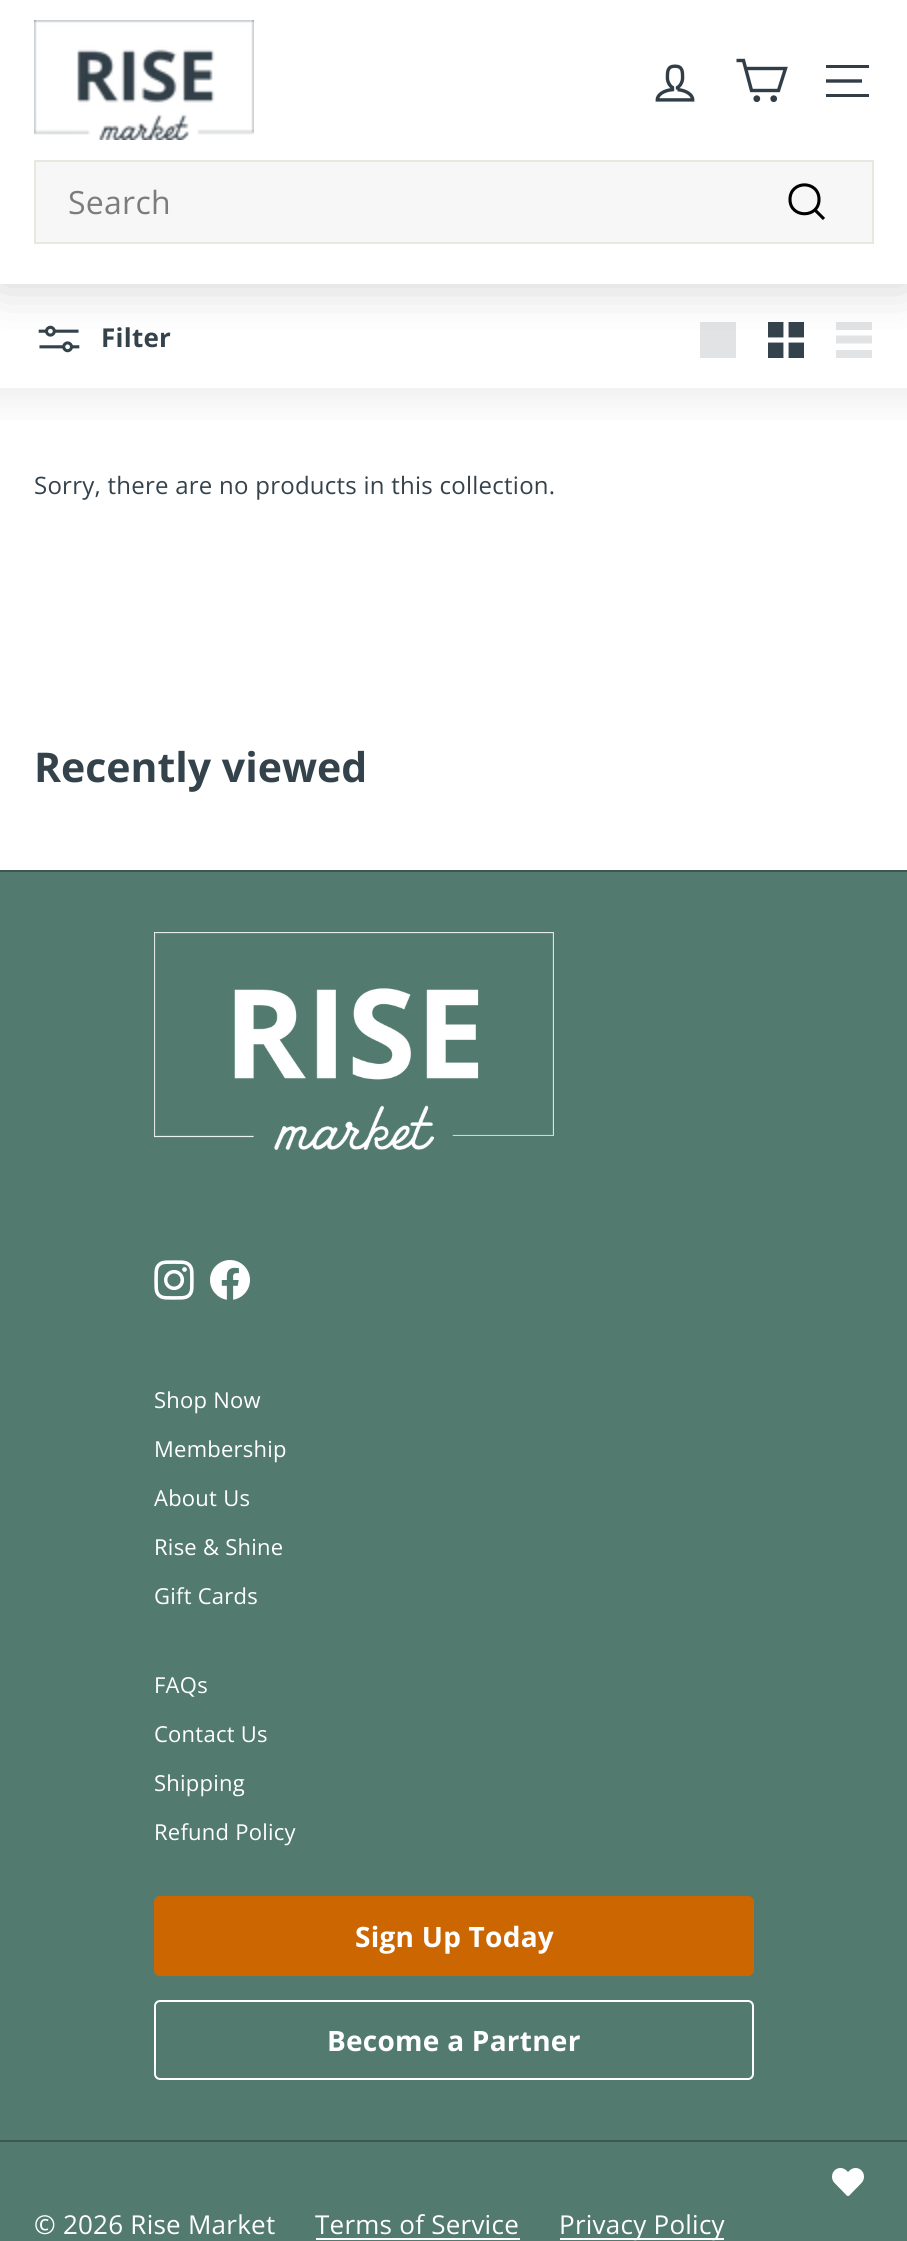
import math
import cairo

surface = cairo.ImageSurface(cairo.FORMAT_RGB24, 907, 2241)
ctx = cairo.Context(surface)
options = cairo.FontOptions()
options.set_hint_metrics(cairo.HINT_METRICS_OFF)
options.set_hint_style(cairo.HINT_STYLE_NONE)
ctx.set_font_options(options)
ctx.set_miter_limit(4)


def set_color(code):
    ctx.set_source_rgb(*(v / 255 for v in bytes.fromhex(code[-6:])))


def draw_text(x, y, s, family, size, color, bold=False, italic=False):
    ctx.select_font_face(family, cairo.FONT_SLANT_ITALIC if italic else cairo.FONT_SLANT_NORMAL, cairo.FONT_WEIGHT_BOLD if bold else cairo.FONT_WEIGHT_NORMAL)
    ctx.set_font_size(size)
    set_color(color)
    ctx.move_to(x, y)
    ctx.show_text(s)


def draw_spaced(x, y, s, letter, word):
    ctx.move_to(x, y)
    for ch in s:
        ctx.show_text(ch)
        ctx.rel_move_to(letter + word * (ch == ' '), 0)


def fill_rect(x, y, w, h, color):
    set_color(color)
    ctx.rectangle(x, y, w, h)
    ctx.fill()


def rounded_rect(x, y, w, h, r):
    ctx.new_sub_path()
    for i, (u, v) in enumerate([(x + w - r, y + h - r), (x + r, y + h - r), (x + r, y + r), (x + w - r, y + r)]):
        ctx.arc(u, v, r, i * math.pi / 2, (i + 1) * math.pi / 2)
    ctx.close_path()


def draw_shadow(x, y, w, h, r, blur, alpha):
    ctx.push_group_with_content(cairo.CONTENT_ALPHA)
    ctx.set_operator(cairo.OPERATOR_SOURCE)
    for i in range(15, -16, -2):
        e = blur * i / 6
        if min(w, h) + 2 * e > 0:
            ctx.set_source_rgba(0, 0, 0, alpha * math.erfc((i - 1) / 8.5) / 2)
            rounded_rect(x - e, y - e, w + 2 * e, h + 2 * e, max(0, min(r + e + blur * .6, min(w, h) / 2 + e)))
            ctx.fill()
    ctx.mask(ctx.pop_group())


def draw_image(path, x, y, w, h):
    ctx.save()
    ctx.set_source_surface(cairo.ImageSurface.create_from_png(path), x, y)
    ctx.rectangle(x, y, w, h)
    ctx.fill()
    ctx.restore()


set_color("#ffffff")
ctx.paint()
draw_image("assets/img3.png", 38, 325, 42, 28)
fill_rect(700, 322, 36, 36, "#e1e3e4")
draw_image("assets/img4.png", 768, 322, 36, 36)
ctx.new_path()
ctx.move_to(836, 322)
ctx.line_to(872, 322)
ctx.line_to(872, 330)
ctx.line_to(836, 330)
ctx.close_path()
ctx.move_to(836, 335.5)
ctx.line_to(872, 335.5)
ctx.line_to(872, 343.5)
ctx.line_to(836, 343.5)
ctx.close_path()
ctx.move_to(836, 350)
ctx.line_to(872, 350)
ctx.line_to(872, 358)
ctx.line_to(836, 358)
ctx.close_path()
ctx.fill()
set_color("#000000")
draw_shadow(0, 0, 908, 284, 0, 25, 0.1)
draw_shadow(0, 160, 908, 124, 0, 25, 0.1)
fill_rect(0, 0, 907, 284, "#ffffff")
draw_image("assets/img1.png", 34, 20, 220, 120)
draw_image("assets/img2.png", 655, 64, 40, 38)
ctx.new_path()
ctx.move_to(746, 68.5)
ctx.line_to(785.5, 68.5)
ctx.line_to(778.5, 90.5)
ctx.line_to(751.5, 90.5)
ctx.line_to(743.5, 60.5)
ctx.line_to(736.5, 60.5)
set_color("#313e47")
ctx.set_line_width(3.4)
ctx.stroke()
ctx.arc(756.8, 98.7, 1.7, 0, 2 * math.pi)
ctx.stroke()
ctx.arc(773.7, 98.7, 1.7, 0, 2 * math.pi)
ctx.stroke()
fill_rect(826, 65, 43, 3, "#313e47")
ctx.new_path()
ctx.move_to(826, 81)
ctx.line_to(862, 81)
ctx.stroke()
fill_rect(826, 94, 43, 3, "#313e47")
set_color("#f7f7f7")
ctx.rectangle(35, 161, 838, 82)
ctx.fill_preserve()
set_color("#e8e8e1")
ctx.set_line_width(2)
ctx.stroke()
ctx.select_font_face("Open Sans")
ctx.set_font_size(32)
set_color("#7c7c7c")
draw_spaced(68, 214, "Search", 0.25, 0)
ctx.new_path()
ctx.move_to(819, 199.5)
ctx.curve_to(819, 218.5, 790, 218.5, 790, 199.5)
ctx.curve_to(790, 180, 819, 180, 819, 199.5)
ctx.close_path()
ctx.move_to(824, 219)
ctx.line_to(815, 210)
set_color("#000000")
ctx.set_line_width(3.1)
ctx.stroke()
ctx.select_font_face("Open Sans", cairo.FONT_SLANT_NORMAL, cairo.FONT_WEIGHT_BOLD)
ctx.set_font_size(26)
set_color("#34424c")
draw_spaced(101, 347, "Filter", 0.25, 0)
gradient = cairo.LinearGradient(454, 388, 454, 428)
gradient.add_color_stop_rgba(0, 0.949, 0.949, 0.949, 1)
gradient.add_color_stop_rgba(1, 1, 1, 1, 1)
ctx.set_source(gradient)
ctx.rectangle(0, 388, 907, 32)
ctx.fill()
ctx.select_font_face("Open Sans")
ctx.set_font_size(24)
set_color("#34424c")
draw_spaced(34, 494, "Sorry, there are no products in this collection.", 0.25, 0)
draw_text(34, 782, "Recently viewed", "Open Sans", 41, "#34424c", bold=True)
fill_rect(0, 872, 907, 1268, "#527a6f")
fill_rect(0, 870, 907, 2, "#3c5850")
draw_image("assets/img5.png", 154, 932, 400, 218)
draw_image("assets/img6.png", 154, 1260, 40, 40)
draw_image("assets/img7.png", 210, 1260, 40, 40)
ctx.select_font_face("Open Sans")
ctx.set_font_size(22)
set_color("#ffffff")
draw_spaced(154, 1408, "Shop Now", 0.25, 0)
draw_spaced(154, 1457, "Membership", 0.25, 0)
draw_spaced(154, 1506, "About Us", 0.25, 0)
draw_spaced(154, 1555, "Rise & Shine", 0.25, 0)
draw_spaced(154, 1604, "Gift Cards", 0.25, 0)
draw_spaced(154, 1693, "FAQs", 0.25, 0)
draw_spaced(154, 1742, "Contact Us", 0.25, 0)
draw_spaced(154, 1791, "Shipping", 0.25, 0)
draw_spaced(154, 1840, "Refund Policy", 0.25, 0)
set_color("#cc6601")
rounded_rect(154, 1896, 600, 80, 6)
ctx.fill()
ctx.select_font_face("Open Sans", cairo.FONT_SLANT_NORMAL, cairo.FONT_WEIGHT_BOLD)
ctx.set_font_size(28)
set_color("#ffffff")
draw_spaced(355, 1947, "Sign Up Today", 0.25, 0)
rounded_rect(155, 2001, 598, 78, 5)
ctx.set_line_width(2)
ctx.stroke()
draw_spaced(327, 2051, "Become a Partner", 0.25, 0)
fill_rect(0, 2142, 907, 99, "#527a6f")
fill_rect(0, 2140, 907, 2, "#3c5850")
ctx.select_font_face("Open Sans")
ctx.set_font_size(26)
set_color("#ffffff")
draw_spaced(34, 2234, "© 2026 Rise Market", 0.25, 0)
draw_spaced(315, 2234, "Terms of Service", 0.25, 0)
fill_rect(316, 2238, 204, 2, "#ffffff")
fill_rect(560, 2238, 164, 2, "#ffffff")
draw_spaced(559, 2234, "Privacy Policy", 0.25, 0)
draw_image("assets/img8.png", 832, 2168, 32, 28)
surface.write_to_png("output.png")
